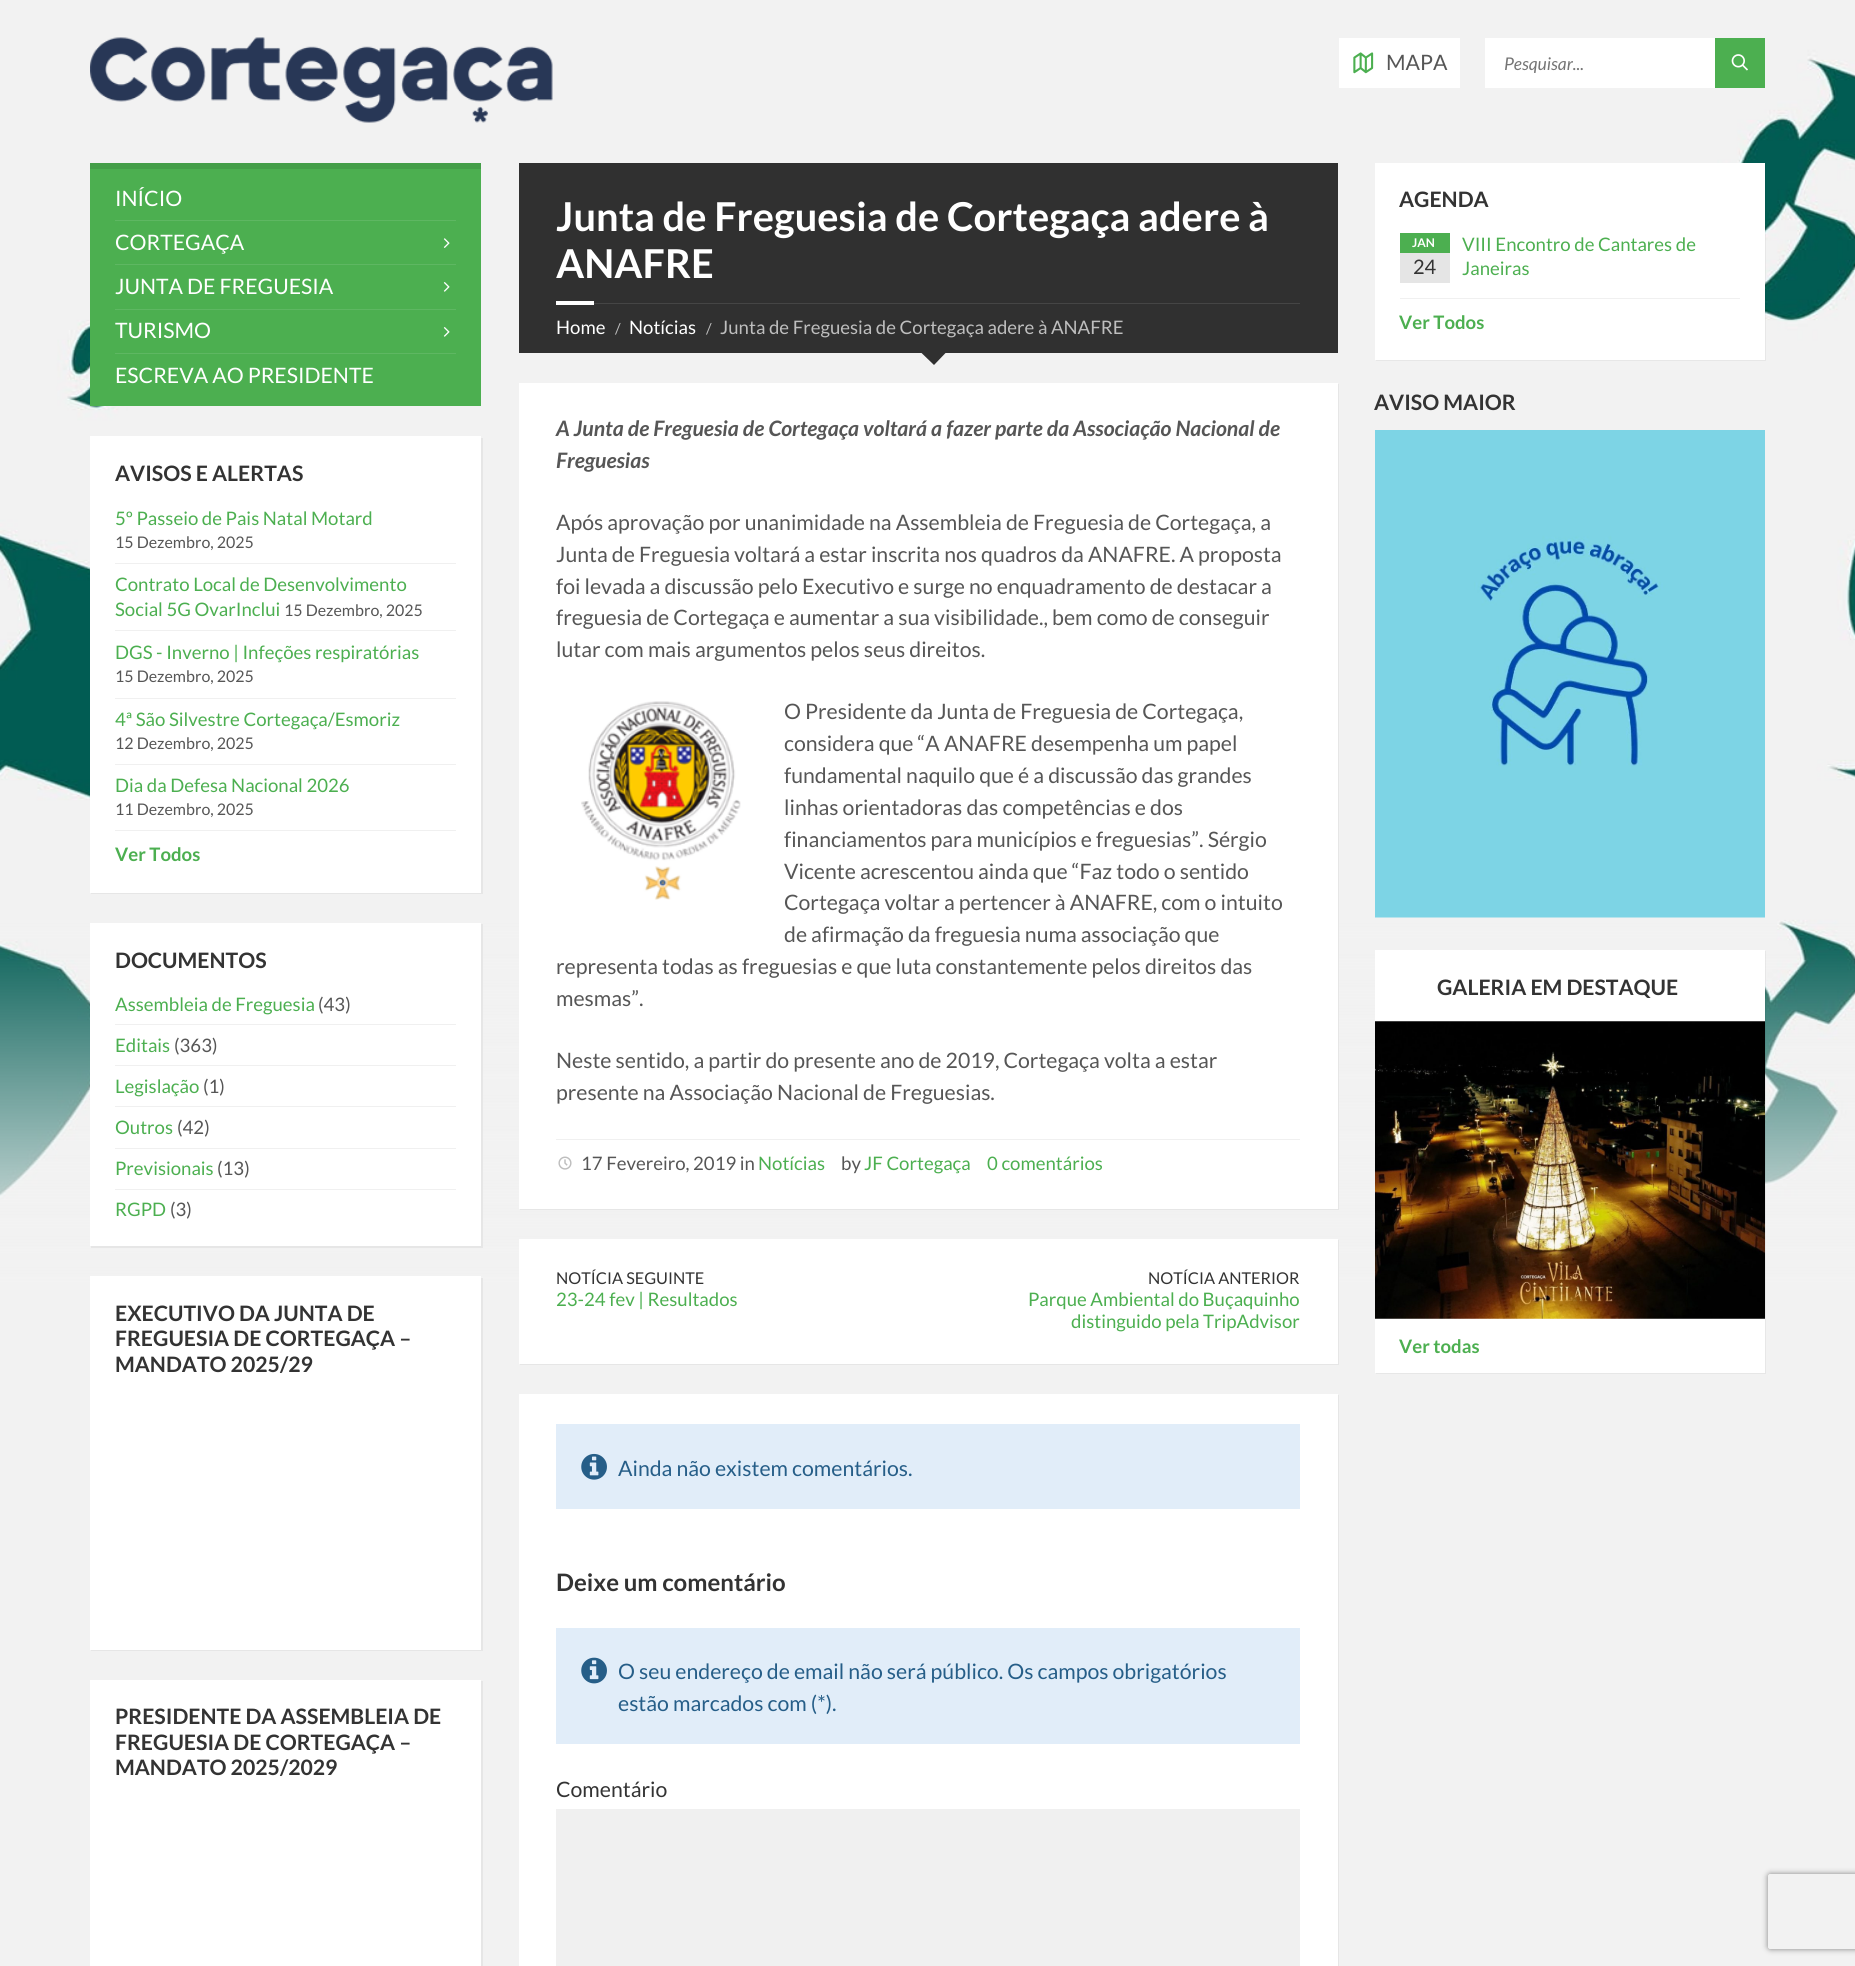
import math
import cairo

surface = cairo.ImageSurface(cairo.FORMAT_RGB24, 1855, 1966)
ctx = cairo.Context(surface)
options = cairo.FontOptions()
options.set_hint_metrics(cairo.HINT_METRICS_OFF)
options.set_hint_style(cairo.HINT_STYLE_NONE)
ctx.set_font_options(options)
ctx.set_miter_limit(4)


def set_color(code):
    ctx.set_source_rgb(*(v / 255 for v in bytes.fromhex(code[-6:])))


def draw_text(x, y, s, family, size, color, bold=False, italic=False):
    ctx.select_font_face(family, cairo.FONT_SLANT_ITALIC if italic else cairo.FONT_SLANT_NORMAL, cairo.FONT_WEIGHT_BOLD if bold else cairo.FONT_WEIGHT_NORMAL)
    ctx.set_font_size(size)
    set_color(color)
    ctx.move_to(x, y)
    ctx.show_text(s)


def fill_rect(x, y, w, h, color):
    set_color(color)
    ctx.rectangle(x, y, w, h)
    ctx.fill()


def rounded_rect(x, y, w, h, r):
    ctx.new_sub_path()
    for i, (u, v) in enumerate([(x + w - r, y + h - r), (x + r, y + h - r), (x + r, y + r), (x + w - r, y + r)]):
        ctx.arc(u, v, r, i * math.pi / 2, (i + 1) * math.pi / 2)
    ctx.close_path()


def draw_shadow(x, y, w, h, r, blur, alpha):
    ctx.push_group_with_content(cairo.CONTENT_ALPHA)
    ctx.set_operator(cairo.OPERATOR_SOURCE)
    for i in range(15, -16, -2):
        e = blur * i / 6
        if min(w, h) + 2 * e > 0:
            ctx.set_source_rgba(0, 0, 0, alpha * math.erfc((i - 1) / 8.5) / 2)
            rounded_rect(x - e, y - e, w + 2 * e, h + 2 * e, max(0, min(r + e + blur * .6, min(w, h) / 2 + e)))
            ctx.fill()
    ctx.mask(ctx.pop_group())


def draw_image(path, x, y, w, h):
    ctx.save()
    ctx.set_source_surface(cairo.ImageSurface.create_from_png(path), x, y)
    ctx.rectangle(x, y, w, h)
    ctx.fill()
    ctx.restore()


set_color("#f2f2f2")
ctx.paint()
draw_image("assets/img1.png", 0, 0, 1855, 1290)
draw_image("assets/img2.png", 90, 37, 463, 86)
fill_rect(1339, 38, 121, 50, "#ffffff")
draw_image("assets/img3.png", 1353, 52, 21, 22)
draw_text(1386, 70, "MAPA", "Lato", 21.25, "#565656")
fill_rect(1485, 38, 230, 50, "#ffffff")
draw_text(1504, 70, "Pesquisar...", "Lato", 17.5, "#757575", italic=True)
fill_rect(1715, 38, 50, 50, "#4caf50")
draw_image("assets/img4.png", 1731, 54, 17, 17)
fill_rect(90, 169, 391, 237, "#4caf50")
fill_rect(90, 163, 391, 6, "#449e48")
draw_text(115, 206, "INÍCIO", "Lato", 21.25, "#ffffff")
fill_rect(115, 220, 341, 1, "#5eb762")
draw_text(115, 250, "CORTEGAÇA", "Lato", 21.25, "#ffffff")
draw_image("assets/img5.png", 443, 238, 7, 10)
fill_rect(115, 264, 341, 1, "#5eb762")
draw_text(115, 294, "JUNTA DE FREGUESIA", "Lato", 21.25, "#ffffff")
draw_image("assets/img6.png", 443, 282, 7, 10)
fill_rect(115, 309, 341, 1, "#5eb762")
draw_text(115, 338, "TURISMO", "Lato", 21.25, "#ffffff")
draw_image("assets/img6.png", 443, 327, 7, 10)
fill_rect(115, 353, 341, 1, "#5eb762")
draw_text(115, 383, "ESCREVA AO PRESIDENTE", "Lato", 21.25, "#ffffff")
set_color("#e6e6e6")
ctx.new_path()
ctx.move_to(91, 892)
ctx.line_to(91, 894)
ctx.line_to(483, 894)
ctx.line_to(483, 438)
ctx.line_to(481, 438)
ctx.line_to(481, 892)
ctx.close_path()
ctx.fill()
fill_rect(90, 436, 391, 457, "#ffffff")
draw_text(115, 481, "AVISOS E ALERTAS", "Lato", 21.25, "#333333", bold=True)
draw_text(115, 525, "5º Passeio de Pais Natal Motard", "Lato", 18.6, "#4caf50")
draw_text(115, 548, "15 Dezembro, 2025", "Lato", 16, "#565656")
fill_rect(115, 563, 341, 1, "#f0f0f0")
draw_text(115, 591, "Contrato Local de Desenvolvimento", "Lato", 18.6, "#4caf50")
draw_text(115, 616, "Social 5G OvarInclui", "Lato", 18.6, "#4caf50")
draw_text(284, 616, "15 Dezembro, 2025", "Lato", 16, "#565656")
fill_rect(115, 630, 341, 1, "#f0f0f0")
draw_text(115, 659, "DGS - Inverno | Infeções respiratórias", "Lato", 18.6, "#4caf50")
draw_text(115, 682, "15 Dezembro, 2025", "Lato", 16, "#565656")
fill_rect(115, 698, 341, 1, "#f0f0f0")
draw_text(115, 726, "4ª São Silvestre Cortegaça/Esmoriz", "Lato", 18.6, "#4caf50")
draw_text(115, 749, "12 Dezembro, 2025", "Lato", 16, "#565656")
fill_rect(115, 764, 341, 1, "#f0f0f0")
draw_text(115, 792, "Dia da Defesa Nacional 2026", "Lato", 18.6, "#4caf50")
draw_text(115, 815, "11 Dezembro, 2025", "Lato", 16, "#565656")
fill_rect(115, 830, 341, 1, "#f0f0f0")
draw_text(115, 861, "Ver Todos", "Lato", 18.6, "#4caf50", bold=True)
set_color("#e6e6e6")
ctx.new_path()
ctx.move_to(91, 1246)
ctx.line_to(91, 1248)
ctx.line_to(483, 1248)
ctx.line_to(483, 924)
ctx.line_to(481, 924)
ctx.line_to(481, 1246)
ctx.close_path()
ctx.fill()
fill_rect(90, 923, 391, 323, "#ffffff")
draw_text(115, 968, "DOCUMENTOS", "Lato", 21.25, "#333333", bold=True)
draw_text(115, 1011, "Assembleia de Freguesia", "Lato", 18.6, "#4caf50")
draw_text(318, 1011, "(43)", "Lato", 18.6, "#565656")
fill_rect(115, 1024, 341, 1, "#f0f0f0")
draw_text(115, 1052, "Editais", "Lato", 18.6, "#4caf50")
draw_text(174, 1052, "(363)", "Lato", 18.6, "#565656")
fill_rect(115, 1065, 341, 1, "#f0f0f0")
draw_text(115, 1093, "Legislação", "Lato", 18.6, "#4caf50")
draw_text(203, 1093, "(1)", "Lato", 18.6, "#565656")
fill_rect(115, 1106, 341, 1, "#f0f0f0")
draw_text(115, 1134, "Outros", "Lato", 18.6, "#4caf50")
draw_text(177, 1134, "(42)", "Lato", 18.6, "#565656")
fill_rect(115, 1148, 341, 1, "#f0f0f0")
draw_text(115, 1175, "Previsionais", "Lato", 18.6, "#4caf50")
draw_text(217, 1175, "(13)", "Lato", 18.6, "#565656")
fill_rect(115, 1189, 341, 1, "#f0f0f0")
draw_text(115, 1216, "RGPD", "Lato", 18.6, "#4caf50")
draw_text(170, 1216, "(3)", "Lato", 18.6, "#565656")
set_color("#e6e6e6")
ctx.new_path()
ctx.move_to(91, 1650)
ctx.line_to(91, 1651)
ctx.line_to(483, 1651)
ctx.line_to(483, 1278)
ctx.line_to(481, 1278)
ctx.line_to(481, 1650)
ctx.close_path()
ctx.fill()
fill_rect(90, 1276, 391, 374, "#ffffff")
draw_text(115, 1321, "EXECUTIVO DA JUNTA DE", "Lato", 21.25, "#333333", bold=True)
draw_text(115, 1346, "FREGUESIA DE CORTEGAÇA –", "Lato", 21.25, "#333333", bold=True)
draw_text(115, 1372, "MANDATO 2025/29", "Lato", 21.25, "#333333", bold=True)
set_color("#e6e6e6")
ctx.new_path()
ctx.move_to(91, 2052)
ctx.line_to(91, 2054)
ctx.line_to(483, 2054)
ctx.line_to(483, 1681)
ctx.line_to(481, 1681)
ctx.line_to(481, 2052)
ctx.close_path()
ctx.fill()
fill_rect(90, 1680, 391, 286, "#ffffff")
draw_text(115, 1724, "PRESIDENTE DA ASSEMBLEIA DE", "Lato", 21.25, "#333333", bold=True)
draw_text(115, 1750, "FREGUESIA DE CORTEGAÇA –", "Lato", 21.25, "#333333", bold=True)
draw_text(115, 1775, "MANDATO 2025/2029", "Lato", 21.25, "#333333", bold=True)
fill_rect(519, 163, 819, 190, "#303030")
fill_rect(594, 303, 706, 1, "#454545")
draw_text(556, 231, "Junta de Freguesia de Cortegaça adere à", "Lato", 39.8, "#ffffff", bold=True)
draw_text(556, 278, "ANAFRE", "Lato", 39.8, "#ffffff", bold=True)
fill_rect(556, 301, 38, 4, "#ffffff")
draw_text(556, 334, "Home", "Lato", 18.6, "#ffffff")
draw_text(615, 334, "/", "Lato", 15, "#bebebe")
draw_text(629, 334, "Notícias", "Lato", 18.6, "#ffffff")
draw_text(706, 334, "/", "Lato", 15, "#bebebe")
draw_text(720, 334, "Junta de Freguesia de Cortegaça adere à ANAFRE", "Lato", 18.6, "#bebebe")
set_color("#303030")
ctx.new_path()
ctx.move_to(921, 352.5)
ctx.line_to(946, 352.5)
ctx.line_to(934, 365)
ctx.close_path()
ctx.fill()
set_color("#e6e6e6")
ctx.new_path()
ctx.move_to(520, 1209)
ctx.line_to(520, 1210)
ctx.line_to(1339, 1210)
ctx.line_to(1339, 384)
ctx.line_to(1338, 384)
ctx.line_to(1338, 1209)
ctx.close_path()
ctx.fill()
fill_rect(519, 383, 819, 826, "#ffffff")
draw_text(556, 436, "A Junta de Freguesia de Cortegaça voltará a fazer parte da Associação Nacional de", "Lato", 21.25, "#565656", bold=True, italic=True)
draw_text(556, 468, "Freguesias", "Lato", 21.25, "#565656", bold=True, italic=True)
draw_text(556, 530, "Após aprovação por unanimidade na Assembleia de Freguesia de Cortegaça, a", "Lato", 21.25, "#565656")
draw_text(556, 562, "Junta de Freguesia voltará a estar inscrita nos quadros da ANAFRE. A proposta", "Lato", 21.25, "#565656")
draw_text(556, 594, "foi levada a discussão pelo Executivo e surge no enquadramento de destacar a", "Lato", 21.25, "#565656")
draw_text(556, 625, "freguesia de Cortegaça e aumentar a sua visibilidade., bem como de conseguir", "Lato", 21.25, "#565656")
draw_text(556, 657, "lutar com mais argumentos pelos seus direitos.", "Lato", 21.25, "#565656")
draw_image("assets/img7.png", 581, 701, 160, 199)
draw_text(784, 719, "O Presidente da Junta de Freguesia de Cortegaça,", "Lato", 21.25, "#565656")
draw_text(784, 751, "considera que “A ANAFRE desempenha um papel", "Lato", 21.25, "#565656")
draw_text(784, 783, "fundamental naquilo que é a discussão das grandes", "Lato", 21.25, "#565656")
draw_text(784, 815, "linhas orientadoras das competências e dos", "Lato", 21.25, "#565656")
draw_text(784, 847, "financiamentos para municípios e freguesias”. Sérgio", "Lato", 21.25, "#565656")
draw_text(784, 879, "Vicente acrescentou ainda que “Faz todo o sentido", "Lato", 21.25, "#565656")
draw_text(784, 910, "Cortegaça voltar a pertencer à ANAFRE, com o intuito", "Lato", 21.25, "#565656")
draw_text(784, 942, "de afirmação da freguesia numa associação que", "Lato", 21.25, "#565656")
draw_text(556, 974, "representa todas as freguesias e que luta constantemente pelos direitos das", "Lato", 21.25, "#565656")
draw_text(556, 1006, "mesmas”.", "Lato", 21.25, "#565656")
draw_text(556, 1068, "Neste sentido, a partir do presente ano de 2019, Cortegaça volta a estar", "Lato", 21.25, "#565656")
draw_text(556, 1100, "presente na Associação Nacional de Freguesias.", "Lato", 21.25, "#565656")
fill_rect(556, 1139, 744, 1, "#f0f0f0")
draw_image("assets/img8.png", 558, 1156, 14, 14)
draw_text(581, 1170, "17 Fevereiro, 2019 in", "Lato", 18.6, "#565656")
draw_text(758, 1170, "Notícias", "Lato", 18.6, "#4caf50")
draw_text(841, 1170, "by", "Lato", 18.6, "#565656")
draw_text(864, 1170, "JF Cortegaça", "Lato", 18.6, "#4caf50")
draw_text(987, 1170, "0 comentários", "Lato", 18.6, "#4caf50")
set_color("#e6e6e6")
ctx.new_path()
ctx.move_to(520, 1364)
ctx.line_to(520, 1365)
ctx.line_to(1339, 1365)
ctx.line_to(1339, 1240)
ctx.line_to(1338, 1240)
ctx.line_to(1338, 1364)
ctx.close_path()
ctx.fill()
fill_rect(519, 1239, 819, 125, "#ffffff")
draw_text(556, 1284, "NOTÍCIA SEGUINTE", "Lato", 16.25, "#333333")
draw_text(556, 1306, "23-24 fev | Resultados", "Lato", 18.6, "#4caf50")
draw_text(1148, 1284, "NOTÍCIA ANTERIOR", "Lato", 16.25, "#333333")
draw_text(1028, 1306, "Parque Ambiental do Buçaquinho", "Lato", 18.6, "#4caf50")
draw_text(1071, 1328, "distinguido pela TripAdvisor", "Lato", 18.6, "#4caf50")
set_color("#e6e6e6")
ctx.new_path()
ctx.move_to(520, 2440)
ctx.line_to(520, 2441)
ctx.line_to(1339, 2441)
ctx.line_to(1339, 1395)
ctx.line_to(1338, 1395)
ctx.line_to(1338, 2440)
ctx.close_path()
ctx.fill()
fill_rect(519, 1394, 819, 572, "#ffffff")
fill_rect(556, 1424, 744, 85, "#e1edf9")
draw_image("assets/img9.png", 581, 1453, 26, 27)
draw_text(618, 1476, "Ainda não existem comentários.", "Lato", 21.25, "#265e88")
draw_text(556, 1591, "Deixe um comentário", "Lato", 24, "#333333", bold=True)
fill_rect(556, 1628, 744, 116, "#e1edf9")
draw_image("assets/img10.png", 581, 1657, 26, 27)
draw_text(618, 1679, "O seu endereço de email não será público. Os campos obrigatórios", "Lato", 21.25, "#265e88")
draw_text(618, 1711, "estão marcados com (*).", "Lato", 21.25, "#265e88")
draw_text(556, 1797, "Comentário", "Lato", 21.25, "#333333")
fill_rect(556, 1809, 744, 157, "#f0f0f0")
ctx.set_source_rgba(0, 0, 0, 0.05)
ctx.new_path()
ctx.move_to(1376, 360)
ctx.line_to(1376, 361)
ctx.line_to(1766, 361)
ctx.line_to(1766, 164)
ctx.line_to(1765, 164)
ctx.line_to(1765, 360)
ctx.close_path()
ctx.fill()
fill_rect(1375, 163, 390, 197, "#ffffff")
draw_text(1399, 207, "AGENDA", "Lato", 21.25, "#333333", bold=True)
fill_rect(1400, 233, 50, 20, "#4caf50")
draw_text(1412, 247, "JAN", "Lato", 12, "#ffffff", bold=True)
fill_rect(1400, 253, 50, 30, "#e5e5e5")
draw_text(1413, 274, "24", "Lato", 20, "#333333")
draw_text(1462, 251, "VIII Encontro de Cantares de", "Lato", 18.6, "#4caf50")
draw_text(1462, 275, "Janeiras", "Lato", 18.6, "#4caf50")
fill_rect(1400, 298, 340, 1, "#f0f0f0")
draw_text(1399, 329, "Ver Todos", "Lato", 18.6, "#4caf50", bold=True)
draw_text(1374, 410, "AVISO MAIOR", "Lato", 21.25, "#333333", bold=True)
draw_image("assets/img11.png", 1375, 430, 390, 488)
ctx.set_source_rgba(0, 0, 0, 0.05)
ctx.new_path()
ctx.move_to(1376, 1372)
ctx.line_to(1376, 1374)
ctx.line_to(1766, 1374)
ctx.line_to(1766, 951)
ctx.line_to(1765, 951)
ctx.line_to(1765, 1372)
ctx.close_path()
ctx.fill()
fill_rect(1375, 950, 390, 423, "#ffffff")
draw_text(1437, 995, "GALERIA EM DESTAQUE", "Lato", 21.25, "#333333", bold=True)
draw_image("assets/img12.png", 1375, 1021, 390, 298)
draw_text(1399, 1353, "Ver todas", "Lato", 18.6, "#4caf50", bold=True)
ctx.save()
ctx.set_fill_rule(cairo.FILL_RULE_EVEN_ODD)
ctx.new_path()
ctx.move_to(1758, 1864)
ctx.line_to(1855, 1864)
ctx.line_to(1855, 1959)
ctx.line_to(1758, 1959)
ctx.close_path()
ctx.move_to(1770.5, 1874)
ctx.line_to(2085.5, 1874)
ctx.curve_to(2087, 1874, 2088, 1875, 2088, 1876.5)
ctx.line_to(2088, 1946.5)
ctx.curve_to(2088, 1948, 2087, 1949, 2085.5, 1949)
ctx.line_to(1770.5, 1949)
ctx.curve_to(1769, 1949, 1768, 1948, 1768, 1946.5)
ctx.line_to(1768, 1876.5)
ctx.curve_to(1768, 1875, 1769, 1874, 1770.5, 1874)
ctx.close_path()
ctx.clip()
set_color("#808080")
draw_shadow(1768, 1874, 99, 75, 2.5, 3, 1)
ctx.restore()
surface.write_to_png("output.png")
